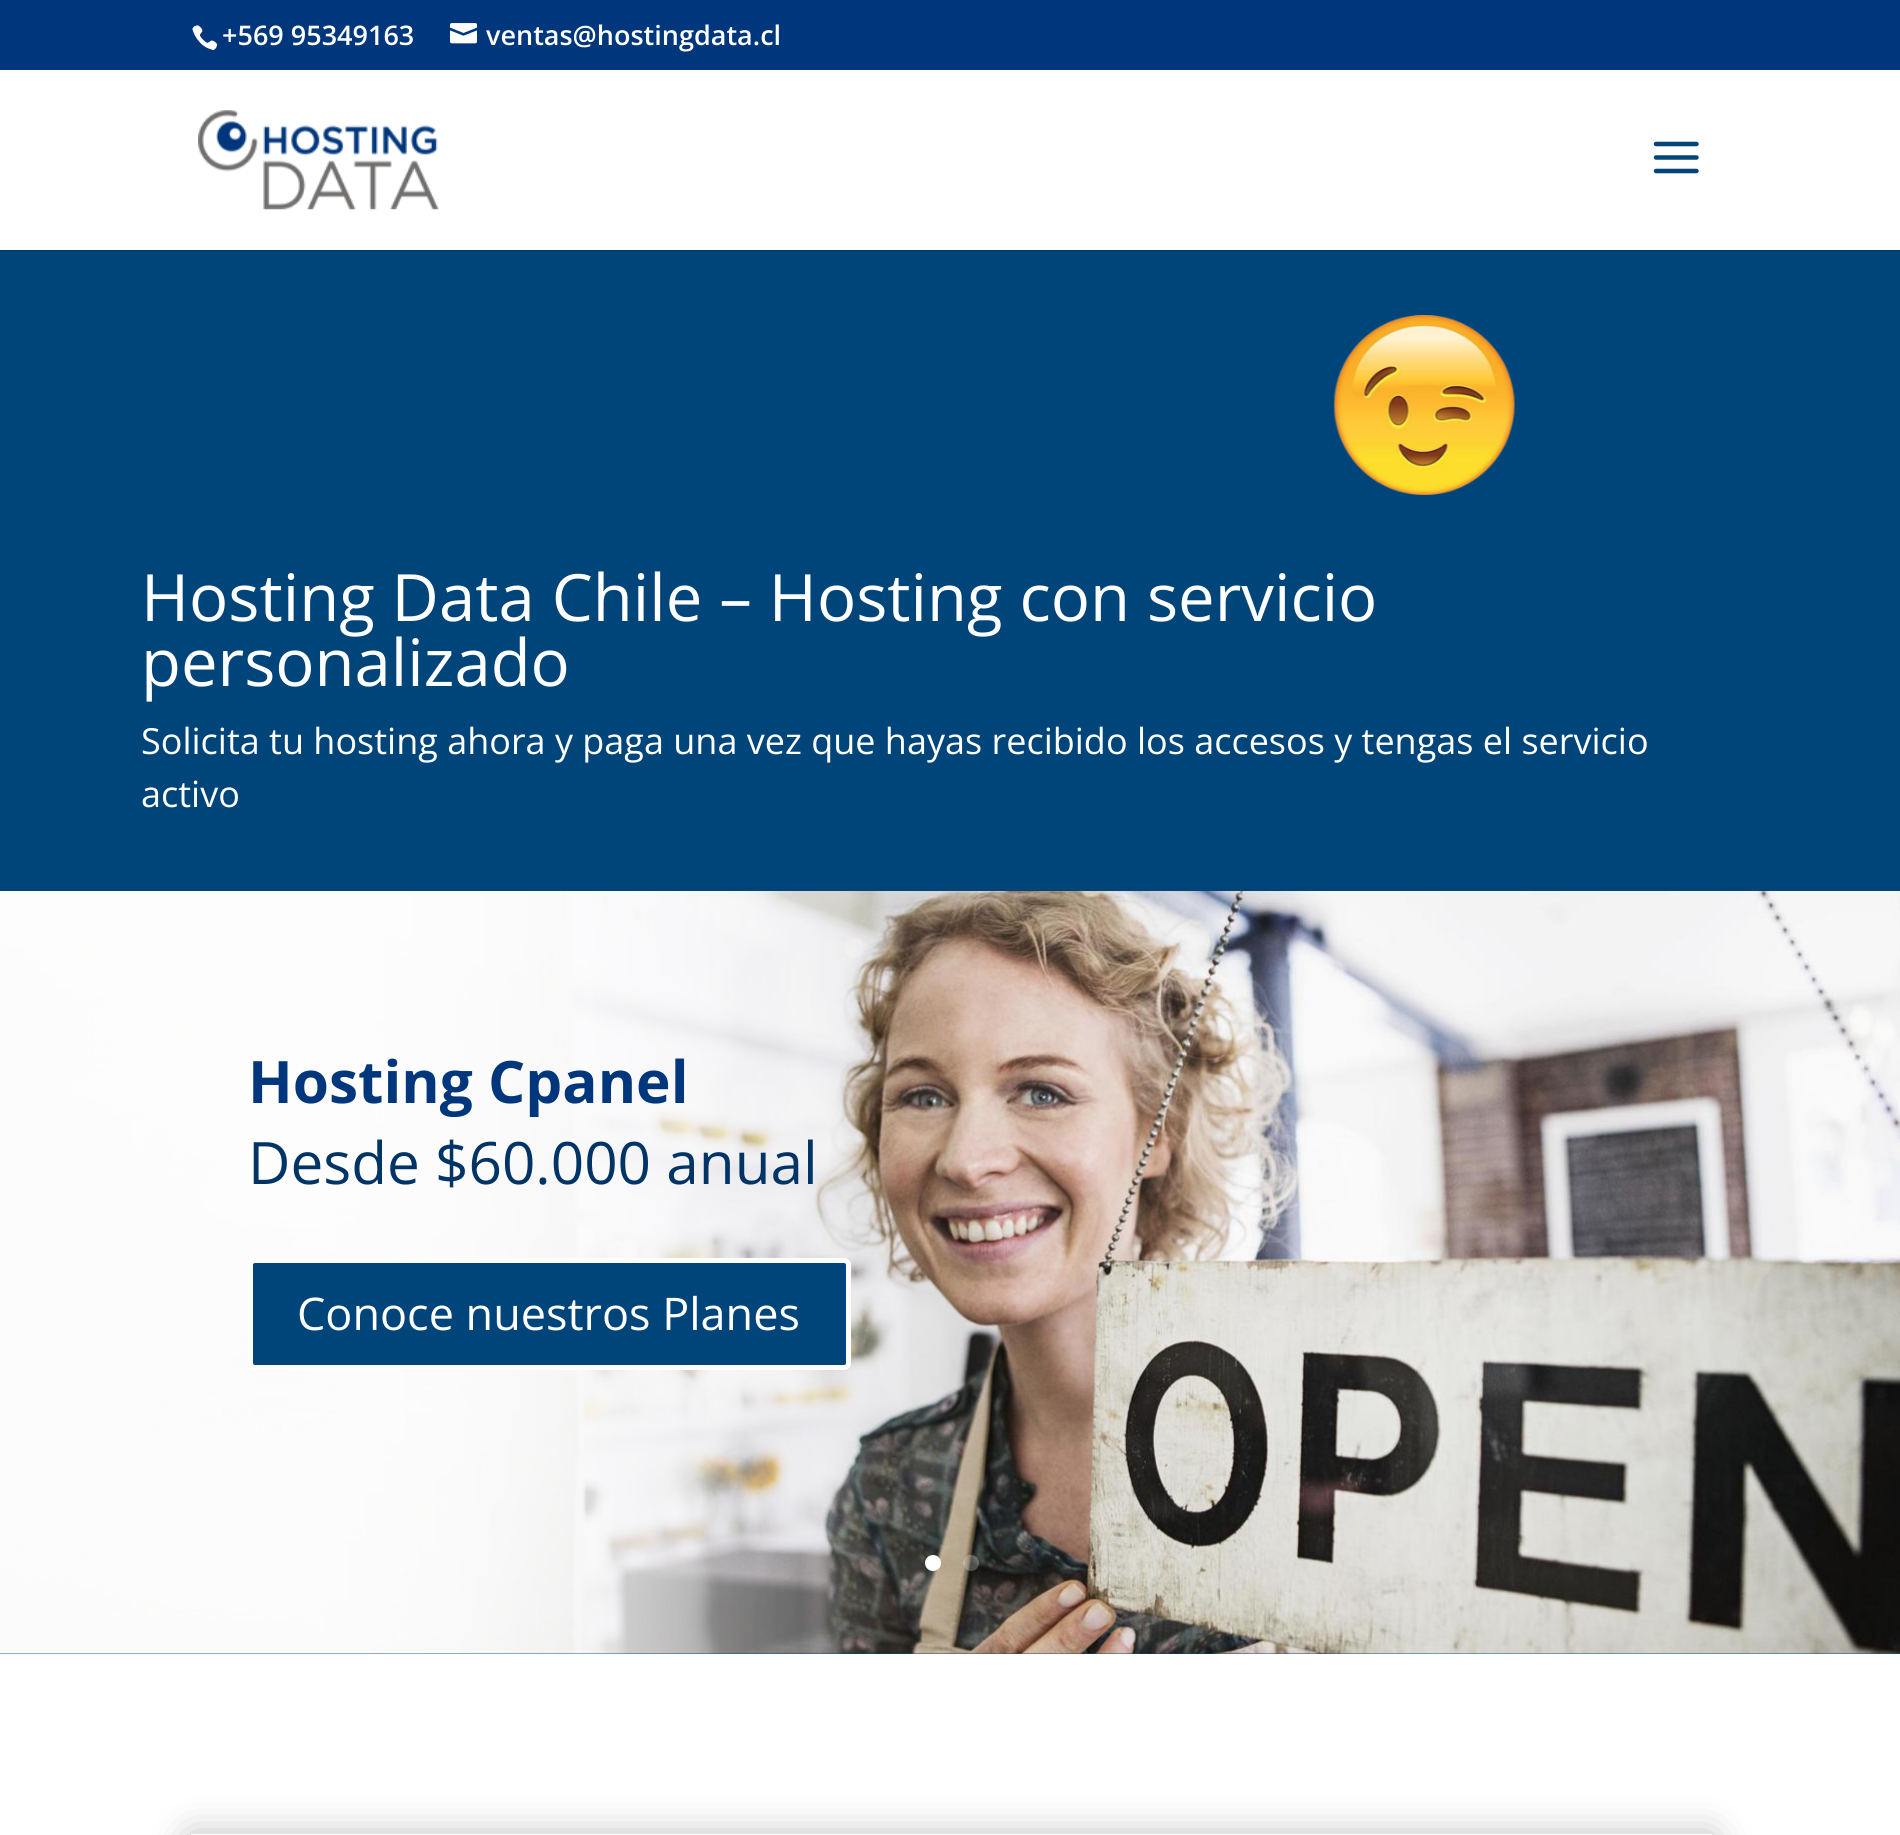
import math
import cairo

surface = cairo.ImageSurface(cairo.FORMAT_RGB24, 1900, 1835)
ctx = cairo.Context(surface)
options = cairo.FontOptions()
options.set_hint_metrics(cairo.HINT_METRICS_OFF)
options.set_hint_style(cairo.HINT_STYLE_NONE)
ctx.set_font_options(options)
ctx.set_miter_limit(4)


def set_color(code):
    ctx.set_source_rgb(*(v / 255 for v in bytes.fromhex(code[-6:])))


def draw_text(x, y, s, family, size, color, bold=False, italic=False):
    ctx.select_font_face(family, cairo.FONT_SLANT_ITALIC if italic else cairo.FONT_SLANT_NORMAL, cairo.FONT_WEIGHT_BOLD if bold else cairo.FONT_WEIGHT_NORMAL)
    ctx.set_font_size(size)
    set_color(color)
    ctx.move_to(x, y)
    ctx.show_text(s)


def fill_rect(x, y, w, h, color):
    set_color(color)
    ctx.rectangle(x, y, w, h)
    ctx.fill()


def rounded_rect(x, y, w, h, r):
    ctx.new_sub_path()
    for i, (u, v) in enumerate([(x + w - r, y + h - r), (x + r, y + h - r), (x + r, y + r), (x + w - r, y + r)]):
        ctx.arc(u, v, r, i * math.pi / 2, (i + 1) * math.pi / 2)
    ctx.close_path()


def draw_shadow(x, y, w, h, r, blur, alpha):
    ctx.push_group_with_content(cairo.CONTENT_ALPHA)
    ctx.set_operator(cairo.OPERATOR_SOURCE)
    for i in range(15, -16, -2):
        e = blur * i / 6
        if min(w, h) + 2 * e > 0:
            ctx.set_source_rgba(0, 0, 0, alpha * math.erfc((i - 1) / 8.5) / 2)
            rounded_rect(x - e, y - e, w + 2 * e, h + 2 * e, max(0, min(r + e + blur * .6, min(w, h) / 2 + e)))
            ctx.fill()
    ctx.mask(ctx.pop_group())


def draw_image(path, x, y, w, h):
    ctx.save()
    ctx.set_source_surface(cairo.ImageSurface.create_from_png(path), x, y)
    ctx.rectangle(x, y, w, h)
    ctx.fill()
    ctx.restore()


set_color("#ffffff")
ctx.paint()
fill_rect(0, 0, 1900, 70, "#00377c")
draw_image("assets/img1.png", 192, 25, 26, 26)
draw_text(222, 45, "+569 95349163", "Open Sans SemiBold", 27, "#ffffff")
draw_image("assets/img2.png", 450, 23, 27, 21)
draw_text(486, 45, "ventas@hostingdata.cl", "Open Sans SemiBold", 27, "#ffffff")
fill_rect(0, 250, 1900, 2, "#003e6e")
draw_image("assets/img3.png", 198, 110, 241, 100)
draw_image("assets/img4.png", 1653, 141, 46, 33)
fill_rect(0, 252, 1900, 639, "#00457a")
draw_image("assets/img5.png", 1333, 315, 182, 180)
draw_text(141, 621, "Hosting Data Chile – Hosting con servicio", "Open Sans", 65.25, "#ffffff")
draw_text(141, 686, "personalizado", "Open Sans", 65.25, "#ffffff")
draw_text(141, 754, "Solicita tu hosting ahora y paga una vez que hayas recibido los accesos y tengas el servicio", "Open Sans", 36, "#ffffff")
draw_text(141, 807, "activo", "Open Sans", 36, "#ffffff")
fill_rect(0, 1653, 1900, 1, "#01457a")
draw_image("assets/img6.png", 0, 891, 1900, 763)
draw_text(248, 1103, "Hosting Cpanel", "Open Sans", 58.5, "#00377c", bold=True)
draw_text(248, 1184, "Desde $60.000 anual", "Open Sans", 58.5, "#003366")
set_color("#00457a")
rounded_rect(250.5, 1260.5, 598, 107, 4.5)
ctx.fill_preserve()
set_color("#ffffff")
ctx.set_line_width(5)
ctx.stroke()
draw_text(297, 1330, "Conoce nuestros Planes", "Open Sans", 45, "#ffffff")
ctx.new_path()
ctx.arc(933, 1563, 8, 0, 2 * math.pi)
ctx.fill()
ctx.set_source_rgba(1, 1, 1, 0.25)
ctx.arc(971, 1563, 8, 0, 2 * math.pi)
ctx.fill()
ctx.save()
ctx.set_fill_rule(cairo.FILL_RULE_EVEN_ODD)
ctx.new_path()
ctx.move_to(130, 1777)
ctx.line_to(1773, 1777)
ctx.line_to(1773, 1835)
ctx.line_to(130, 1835)
ctx.close_path()
ctx.move_to(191, 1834)
ctx.line_to(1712, 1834)
ctx.line_to(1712, 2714)
ctx.line_to(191, 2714)
ctx.close_path()
ctx.clip()
set_color("#000000")
draw_shadow(191, 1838, 1521, 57, 0, 20, 0.3)
ctx.restore()
surface.write_to_png("output.png")
